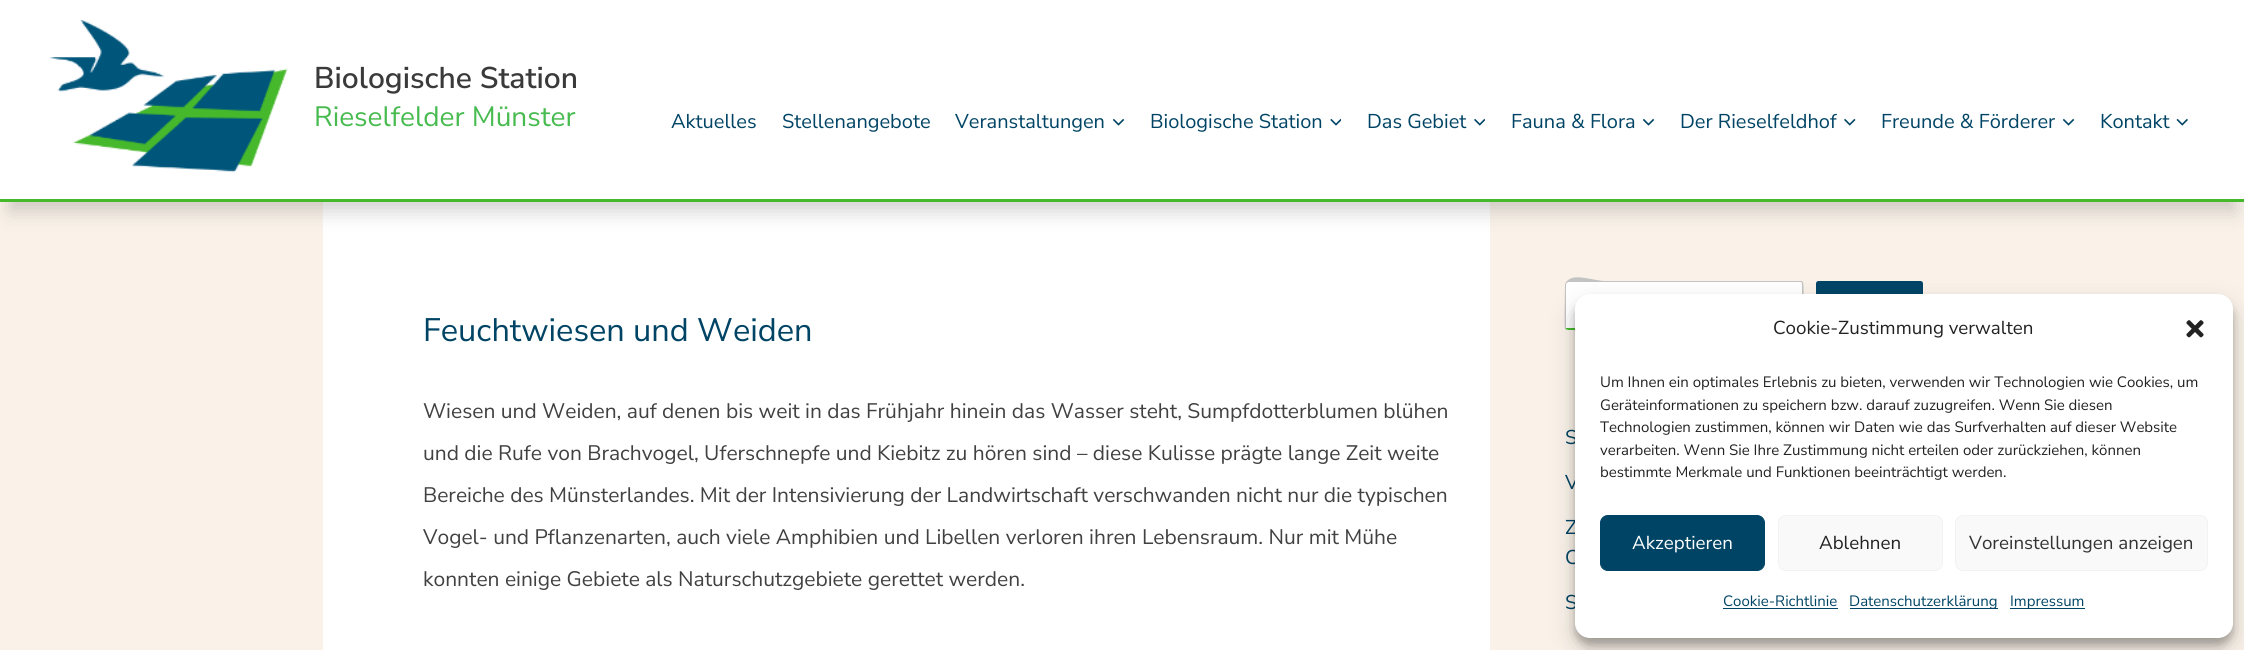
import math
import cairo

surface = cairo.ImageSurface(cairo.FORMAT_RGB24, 2244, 650)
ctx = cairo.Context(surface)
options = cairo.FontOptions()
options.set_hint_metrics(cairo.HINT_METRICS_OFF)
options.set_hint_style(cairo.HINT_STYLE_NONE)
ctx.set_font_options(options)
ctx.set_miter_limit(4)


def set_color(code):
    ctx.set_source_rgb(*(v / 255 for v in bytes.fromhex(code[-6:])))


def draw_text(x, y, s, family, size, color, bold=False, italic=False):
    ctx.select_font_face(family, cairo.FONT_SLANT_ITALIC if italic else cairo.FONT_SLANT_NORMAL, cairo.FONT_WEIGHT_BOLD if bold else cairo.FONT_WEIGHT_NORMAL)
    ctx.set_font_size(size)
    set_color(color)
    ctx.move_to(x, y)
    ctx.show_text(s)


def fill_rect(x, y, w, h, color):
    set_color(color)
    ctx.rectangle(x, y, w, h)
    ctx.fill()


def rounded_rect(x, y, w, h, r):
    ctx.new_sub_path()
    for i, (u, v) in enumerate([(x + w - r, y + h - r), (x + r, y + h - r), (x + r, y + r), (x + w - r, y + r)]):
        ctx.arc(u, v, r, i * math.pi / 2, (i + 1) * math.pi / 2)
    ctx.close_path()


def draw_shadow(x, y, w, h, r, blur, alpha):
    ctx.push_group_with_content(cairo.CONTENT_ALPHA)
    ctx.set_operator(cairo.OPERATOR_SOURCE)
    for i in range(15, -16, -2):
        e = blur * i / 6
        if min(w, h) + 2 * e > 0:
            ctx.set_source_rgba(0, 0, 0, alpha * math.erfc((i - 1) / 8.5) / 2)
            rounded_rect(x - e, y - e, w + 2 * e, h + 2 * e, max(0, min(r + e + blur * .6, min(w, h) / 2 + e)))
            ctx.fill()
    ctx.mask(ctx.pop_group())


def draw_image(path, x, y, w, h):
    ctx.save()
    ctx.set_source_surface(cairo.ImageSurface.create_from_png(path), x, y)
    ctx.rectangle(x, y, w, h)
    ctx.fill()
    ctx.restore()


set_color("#faf2e9")
ctx.paint()
fill_rect(323, 202, 1167, 448, "#ffffff")
set_color("#686868")
draw_shadow(10, 30, 2225, 181, 0, 10, 0.31)
fill_rect(0, 0, 2244, 199, "#ffffff")
fill_rect(0, 199, 2244, 3, "#46b82c")
draw_image("assets/img1.png", 49, 20, 239, 153)
draw_text(314, 88, "Biologische Station", "Nunito Sans SemiBold", 30, "#3a3a3a")
draw_text(314, 126, "Rieselfelder Münster", "Nunito Sans", 28, "#48bb50")
draw_text(671, 128, "Aktuelles", "Nunito Sans", 20, "#004465")
draw_text(782, 128, "Stellenangebote", "Nunito Sans", 20, "#004465")
draw_text(955, 128, "Veranstaltungen", "Nunito Sans", 20, "#004465")
draw_image("assets/img2.png", 1113, 118, 12, 8)
draw_text(1150, 128, "Biologische Station", "Nunito Sans", 20, "#004465")
draw_image("assets/img3.png", 1330, 118, 11, 8)
draw_text(1367, 128, "Das Gebiet", "Nunito Sans", 20, "#004465")
draw_image("assets/img4.png", 1474, 118, 11, 8)
draw_text(1511, 128, "Fauna & Flora", "Nunito Sans", 20, "#004465")
draw_image("assets/img2.png", 1643, 118, 12, 8)
draw_text(1680, 128, "Der Rieselfeldhof", "Nunito Sans", 20, "#004465")
draw_image("assets/img5.png", 1844, 118, 12, 8)
draw_text(1881, 128, "Freunde & Förderer", "Nunito Sans", 20, "#004465")
draw_image("assets/img2.png", 2063, 118, 12, 8)
draw_text(2100, 128, "Kontakt", "Nunito Sans", 20, "#004465")
draw_image("assets/img6.png", 2176, 118, 12, 8)
draw_text(423, 341, "Feuchtwiesen und Weiden", "Nunito Sans", 32.5, "#004465")
draw_text(423, 418, "Wiesen und Weiden, auf denen bis weit in das Frühjahr hinein das Wasser steht, Sumpfdotterblumen blühen", "Nunito Sans", 21, "#414141")
draw_text(423, 460, "und die Rufe von Brachvogel, Uferschnepfe und Kiebitz zu hören sind – diese Kulisse prägte lange Zeit weite", "Nunito Sans", 21, "#414141")
draw_text(423, 502, "Bereiche des Münsterlandes. Mit der Intensivierung der Landwirtschaft verschwanden nicht nur die typischen", "Nunito Sans", 21, "#414141")
draw_text(423, 544, "Vogel- und Pflanzenarten, auch viele Amphibien und Libellen verloren ihren Lebensraum. Nur mit Mühe", "Nunito Sans", 21, "#414141")
draw_text(423, 586, "konnten einige Gebiete als Naturschutzgebiete gerettet werden.", "Nunito Sans", 21, "#414141")
set_color("#ffffff")
ctx.new_path()
ctx.move_to(1568, 282)
ctx.line_to(1801, 282)
ctx.curve_to(1802, 282, 1802, 283, 1802, 284)
ctx.line_to(1802, 328)
ctx.line_to(1566, 328)
ctx.line_to(1566, 284)
ctx.curve_to(1566, 283, 1567, 282, 1568, 282)
ctx.close_path()
ctx.fill()
set_color("#c3c3c3")
ctx.new_path()
ctx.move_to(1568, 282)
ctx.line_to(1567, 283)
ctx.line_to(1566, 282)
ctx.curve_to(1574, 272, 1592, 281, 1606, 281)
ctx.line_to(1802, 281)
ctx.line_to(1803, 282)
ctx.line_to(1802, 283)
ctx.line_to(1801, 282)
ctx.close_path()
ctx.fill()
ctx.new_path()
ctx.move_to(1804, 329)
ctx.line_to(1803, 329)
ctx.curve_to(1801, 324, 1802, 318, 1802, 312)
ctx.line_to(1802, 283)
ctx.line_to(1803, 282)
ctx.curve_to(1804, 283, 1804, 324, 1804, 329)
ctx.close_path()
ctx.fill()
set_color("#46b82c")
ctx.new_path()
ctx.move_to(1568, 330)
ctx.line_to(1723, 330)
ctx.line_to(1803, 330)
ctx.line_to(1803, 329)
ctx.line_to(1802, 326)
ctx.line_to(1802, 328)
ctx.line_to(1566, 328)
ctx.line_to(1565, 329)
ctx.close_path()
ctx.fill()
set_color("#c3c3c3")
ctx.new_path()
ctx.move_to(1565, 284)
ctx.curve_to(1565, 289, 1564, 328, 1565, 329)
ctx.line_to(1566, 328)
ctx.line_to(1566, 284)
ctx.line_to(1567, 283)
ctx.line_to(1566, 282)
ctx.close_path()
ctx.fill()
set_color("#004465")
rounded_rect(1816, 281, 107, 49, 2.5)
ctx.fill()
draw_text(1565, 444, "S", "Nunito Sans", 20, "#004465")
draw_text(1565, 489, "V", "Nunito Sans", 20, "#004465")
draw_text(1565, 534, "Z", "Nunito Sans", 20, "#004465")
draw_text(1565, 564, "C", "Nunito Sans", 20, "#004465")
draw_text(1565, 609, "S", "Nunito Sans", 20, "#004465")
set_color("#000000")
draw_shadow(1575, 301, 658, 344, 15, 4, 0.23)
draw_shadow(1575, 306, 658, 344, 15, 12.5, 0.19)
set_color("#ffffff")
rounded_rect(1575, 294, 658, 344, 15)
ctx.fill()
draw_text(1773, 334, "Cookie-Zustimmung verwalten", "Nunito Sans", 18.75, "#222222")
draw_image("assets/img7.png", 2186, 320, 18, 18)
draw_text(1600, 387, "Um Ihnen ein optimales Erlebnis zu bieten, verwenden wir Technologien wie Cookies, um", "Nunito Sans", 15, "#222222")
draw_text(1600, 410, "Geräteinformationen zu speichern bzw. darauf zuzugreifen. Wenn Sie diesen", "Nunito Sans", 15, "#222222")
draw_text(1600, 432, "Technologien zustimmen, können wir Daten wie das Surfverhalten auf dieser Website", "Nunito Sans", 15, "#222222")
draw_text(1600, 455, "verarbeiten. Wenn Sie Ihre Zustimmung nicht erteilen oder zurückziehen, können", "Nunito Sans", 15, "#222222")
draw_text(1600, 477, "bestimmte Merkmale und Funktionen beeinträchtigt werden.", "Nunito Sans", 15, "#222222")
set_color("#004465")
rounded_rect(1600.5, 515.5, 164, 55, 7.5)
ctx.fill_preserve()
ctx.set_line_width(1)
ctx.stroke()
draw_text(1632, 549, "Akzeptieren", "Nunito Sans", 18.75, "#ffffff")
set_color("#f9f9f9")
rounded_rect(1778.5, 515.5, 164, 55, 7.5)
ctx.fill_preserve()
set_color("#f2f2f2")
ctx.stroke()
draw_text(1819, 549, "Ablehnen", "Nunito Sans", 18.75, "#222222")
set_color("#f9f9f9")
rounded_rect(1955.5, 515.5, 252, 55, 7.5)
ctx.fill_preserve()
set_color("#f2f2f2")
ctx.stroke()
draw_text(1969, 549, "Voreinstellungen anzeigen", "Nunito Sans", 18.75, "#333333")
draw_text(1723, 606, "Cookie-Richtlinie", "Nunito Sans", 15, "#004465")
fill_rect(1723, 608, 115, 1, "#004465")
fill_rect(1850, 608, 148, 1, "#004465")
draw_text(1849, 606, "Datenschutzerklärung", "Nunito Sans", 15, "#004465")
fill_rect(2010, 608, 75, 1, "#004465")
draw_text(2010, 606, "Impressum", "Nunito Sans", 15, "#004465")
surface.write_to_png("output.png")
